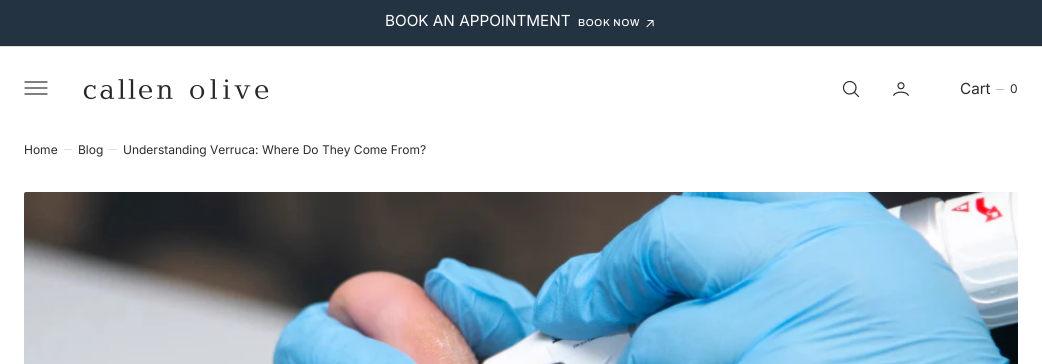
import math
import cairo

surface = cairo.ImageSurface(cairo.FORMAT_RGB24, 1042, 364)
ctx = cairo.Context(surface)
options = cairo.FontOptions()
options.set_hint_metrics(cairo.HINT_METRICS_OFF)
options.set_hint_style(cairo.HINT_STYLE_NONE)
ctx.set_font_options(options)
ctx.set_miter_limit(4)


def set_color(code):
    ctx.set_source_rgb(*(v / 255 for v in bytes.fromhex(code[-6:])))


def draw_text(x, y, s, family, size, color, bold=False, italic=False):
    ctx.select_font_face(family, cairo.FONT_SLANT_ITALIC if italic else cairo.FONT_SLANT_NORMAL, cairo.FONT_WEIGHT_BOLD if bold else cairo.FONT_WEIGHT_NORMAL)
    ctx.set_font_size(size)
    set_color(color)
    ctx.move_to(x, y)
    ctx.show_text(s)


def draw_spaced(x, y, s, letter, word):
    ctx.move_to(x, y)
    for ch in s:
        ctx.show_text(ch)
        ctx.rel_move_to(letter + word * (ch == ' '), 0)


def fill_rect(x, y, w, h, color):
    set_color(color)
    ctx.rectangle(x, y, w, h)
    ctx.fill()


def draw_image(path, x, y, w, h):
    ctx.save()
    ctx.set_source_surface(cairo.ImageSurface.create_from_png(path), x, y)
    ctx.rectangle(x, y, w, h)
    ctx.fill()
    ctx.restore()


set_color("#ffffff")
ctx.paint()
fill_rect(0, 0, 1042, 46, "#233342")
fill_rect(0, 46, 1042, 1, "#e2ddd0")
draw_text(385, 26, "BOOK AN APPOINTMENT", "Inter", 15.25, "#ffffff")
ctx.select_font_face("Archivo Medium")
ctx.set_font_size(10)
draw_spaced(578, 26, "BOOK NOW", 0.75, 0)
draw_image("assets/img1.png", 646, 20, 8, 8)
ctx.new_path()
ctx.move_to(25, 82)
ctx.line_to(47, 82)
ctx.move_to(25, 88)
ctx.line_to(47, 88)
ctx.move_to(25, 94)
ctx.line_to(47, 94)
set_color("#2b2b2b")
ctx.set_line_width(1.2)
ctx.set_line_cap(cairo.LINE_CAP_ROUND)
ctx.stroke()
draw_image("assets/img2.png", 83, 79, 186, 21)
draw_image("assets/img3.png", 842, 80, 18, 18)
draw_image("assets/img4.png", 893, 82, 16, 14)
draw_text(960, 94, "Cart", "Inter", 15.25, "#2b2b2b")
fill_rect(996, 89, 8, 1, "#bfbfbf")
draw_text(1010, 93, "0", "Inter", 12, "#2b2b2b")
draw_text(24, 154, "Home", "Inter", 12, "#2b2b2b")
fill_rect(64, 149, 8, 1, "#dfdfdf")
draw_text(78, 154, "Blog", "Inter", 12, "#2b2b2b")
fill_rect(109, 149, 8, 1, "#dfdfdf")
draw_text(123, 154, "Understanding Verruca: Where Do They Come From?", "Inter", 12, "#2b2b2b")
draw_image("assets/img5.png", 24, 192, 994, 172)
surface.write_to_png("output.png")
